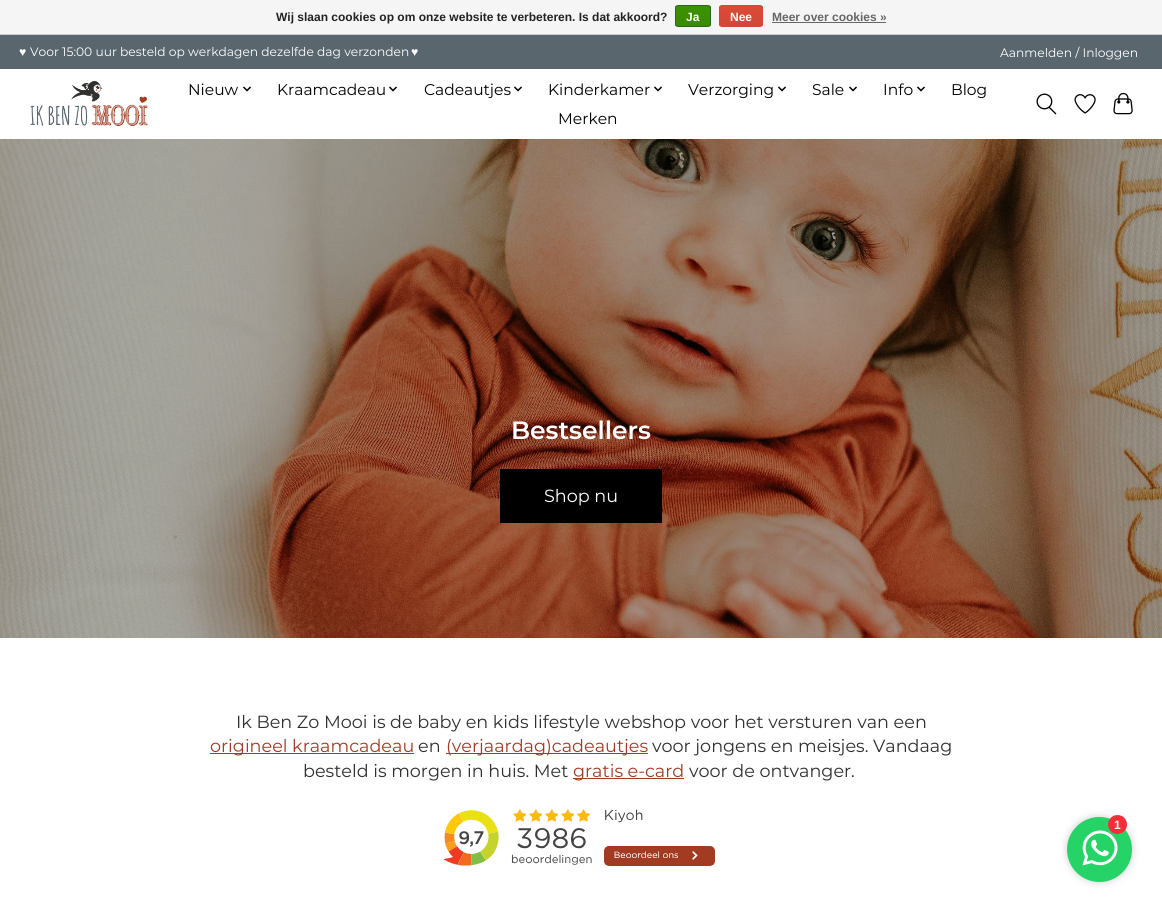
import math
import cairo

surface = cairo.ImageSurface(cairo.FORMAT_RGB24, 1162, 912)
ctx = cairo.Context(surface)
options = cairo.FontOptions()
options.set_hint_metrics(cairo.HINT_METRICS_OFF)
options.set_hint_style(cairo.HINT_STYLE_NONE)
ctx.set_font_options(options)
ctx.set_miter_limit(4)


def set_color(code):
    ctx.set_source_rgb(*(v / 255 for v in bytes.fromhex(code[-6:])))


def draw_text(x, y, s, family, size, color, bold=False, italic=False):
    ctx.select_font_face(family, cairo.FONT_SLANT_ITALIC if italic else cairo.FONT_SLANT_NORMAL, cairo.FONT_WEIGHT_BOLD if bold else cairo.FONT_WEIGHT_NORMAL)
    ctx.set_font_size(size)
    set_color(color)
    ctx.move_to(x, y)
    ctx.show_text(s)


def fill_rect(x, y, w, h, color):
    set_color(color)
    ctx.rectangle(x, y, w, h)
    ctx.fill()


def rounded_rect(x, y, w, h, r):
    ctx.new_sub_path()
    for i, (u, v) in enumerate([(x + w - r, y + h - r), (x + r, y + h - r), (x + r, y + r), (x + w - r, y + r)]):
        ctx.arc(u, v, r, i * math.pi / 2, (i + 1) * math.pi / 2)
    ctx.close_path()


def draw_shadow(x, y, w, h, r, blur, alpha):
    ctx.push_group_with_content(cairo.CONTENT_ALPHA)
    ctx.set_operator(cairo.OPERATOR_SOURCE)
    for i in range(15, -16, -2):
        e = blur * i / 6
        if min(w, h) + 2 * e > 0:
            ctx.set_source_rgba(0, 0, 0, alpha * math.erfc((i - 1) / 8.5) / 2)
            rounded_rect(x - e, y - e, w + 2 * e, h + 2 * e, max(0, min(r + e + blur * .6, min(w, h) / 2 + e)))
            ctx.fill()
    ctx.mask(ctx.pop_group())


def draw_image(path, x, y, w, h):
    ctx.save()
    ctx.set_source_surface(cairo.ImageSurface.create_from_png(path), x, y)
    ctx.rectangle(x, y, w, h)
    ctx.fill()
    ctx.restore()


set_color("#ffffff")
ctx.paint()
fill_rect(0, 0, 1162, 34, "#f5f5f5")
fill_rect(0, 34, 1162, 1, "#cccccc")
draw_text(276, 21, "Wij slaan cookies op om onze website te verbeteren. Is dat akkoord?", "Liberation Sans", 12, "#222222", bold=True)
ctx.save()
rounded_rect(675, 5, 36, 22, 3)
ctx.clip()
gradient = cairo.LinearGradient(693, 6, 693, 26)
gradient.add_color_stop_rgba(0, 0.235, 0.576, 0, 1)
gradient.add_color_stop_rgba(1, 0.224, 0.541, 0, 1)
ctx.set_source(gradient)
ctx.rectangle(675, 6, 36, 20)
ctx.fill()
ctx.restore()
rounded_rect(675.5, 5.5, 35, 21, 2.5)
set_color("#29691d")
ctx.set_line_width(1)
ctx.stroke()
draw_text(686, 21, "Ja", "Liberation Sans", 12, "#ffffff", bold=True)
ctx.save()
rounded_rect(719, 5, 44, 22, 3)
ctx.clip()
gradient = cairo.LinearGradient(741, 6, 741, 26)
gradient.add_color_stop_rgba(0, 0.863, 0.29, 0.22, 1)
gradient.add_color_stop_rgba(1, 0.82, 0.282, 0.212, 1)
ctx.set_source(gradient)
ctx.rectangle(719, 6, 44, 20)
ctx.fill()
ctx.restore()
rounded_rect(719.5, 5.5, 43, 21, 2.5)
set_color("#d14836")
ctx.stroke()
draw_text(730, 21, "Nee", "Liberation Sans", 12, "#ffffff", bold=True)
draw_text(772, 21, "Meer over cookies »", "Liberation Sans", 12, "#666666", bold=True)
fill_rect(772, 22, 114, 1, "#666666")
fill_rect(0, 35, 1162, 34, "#59666e")
draw_text(19, 56, "♥", "Liberation Serif", 12.25, "#ffffff")
draw_text(30, 56, "Voor 15:00 uur besteld op werkdagen dezelfde dag verzonden", "Montserrat Thin", 12.25, "#ffffff")
draw_text(411, 56, "♥", "Liberation Serif", 12.25, "#ffffff")
draw_text(1000, 57, "Aanmelden / Inloggen", "Montserrat Thin", 12.25, "#ffffff")
draw_image("assets/img1.png", 30, 81, 118, 45)
draw_text(188, 95, "Nieuw", "Montserrat Thin", 15.5, "#000000")
draw_image("assets/img2.png", 243, 86, 8, 6)
draw_text(277, 95, "Kraamcadeau", "Montserrat Thin", 15.5, "#000000")
draw_image("assets/img2.png", 389, 86, 8, 6)
draw_text(424, 95, "Cadeautjes", "Montserrat Thin", 15.5, "#000000")
draw_image("assets/img2.png", 514, 86, 8, 6)
draw_text(548, 95, "Kinderkamer", "Montserrat Thin", 15.5, "#000000")
draw_image("assets/img2.png", 654, 86, 8, 6)
draw_text(688, 95, "Verzorging", "Montserrat Thin", 15.5, "#000000")
draw_image("assets/img2.png", 778, 86, 8, 6)
draw_text(812, 95, "Sale", "Montserrat Thin", 15.5, "#000000")
draw_image("assets/img2.png", 849, 86, 8, 6)
draw_text(883, 95, "Info", "Montserrat Thin", 15.5, "#000000")
draw_image("assets/img2.png", 917, 86, 8, 6)
draw_text(951, 95, "Blog", "Montserrat Thin", 15.5, "#000000")
draw_text(558, 124, "Merken", "Montserrat Thin", 15.5, "#000000")
draw_image("assets/img3.png", 1036, 93, 21, 22)
draw_image("assets/img4.png", 1074, 94, 22, 20)
draw_image("assets/img5.png", 1113, 93, 20, 22)
draw_image("assets/img6.png", 0, 139, 1162, 499)
draw_text(511, 439, "Bestsellers", "Montserrat SemiBold", 25, "#ffffff")
fill_rect(500, 469, 162, 54, "#000000")
draw_text(544, 502, "Shop nu", "Montserrat Thin", 17.6, "#ffffff")
draw_text(236, 728, "Ik Ben Zo Mooi is de baby en kids lifestyle webshop voor het versturen van een", "Montserrat Thin", 17.6, "#32302f")
fill_rect(210, 753, 204, 1, "#a33b23")
draw_text(210, 752, "origineel kraamcadeau", "Montserrat Thin", 17.6, "#a33b23")
draw_text(418, 752, "en", "Montserrat Thin", 17.6, "#32302f")
fill_rect(446, 753, 202, 1, "#a33b23")
draw_text(446, 752, "(verjaardag)cadeautjes", "Montserrat Thin", 17.6, "#a33b23")
draw_text(652, 752, "voor jongens en meisjes. Vandaag", "Montserrat Thin", 17.6, "#32302f")
draw_text(303, 777, "besteld is morgen in huis. Met", "Montserrat Thin", 17.6, "#32302f")
fill_rect(573, 778, 111, 1, "#a33b23")
draw_text(573, 777, "gratis e-card", "Montserrat Thin", 17.6, "#a33b23")
draw_text(689, 777, "voor de ontvanger.", "Montserrat Thin", 17.6, "#32302f")
draw_image("assets/img7.png", 443, 809, 272, 57)
set_color("#000000")
draw_shadow(1067, 817, 65, 65, 32.5, 4, 0.2)
set_color("#25d366")
ctx.arc(1099.5, 849.5, 32.5, 0, 2 * math.pi)
ctx.fill()
draw_image("assets/img8.png", 1082, 830, 36, 36)
set_color("#f72e38")
ctx.arc(1117.5, 824.5, 9.5, 0, 2 * math.pi)
ctx.fill()
draw_text(1114, 829, "1", "Liberation Sans", 12, "#ffffff", bold=True)
surface.write_to_png("output.png")
